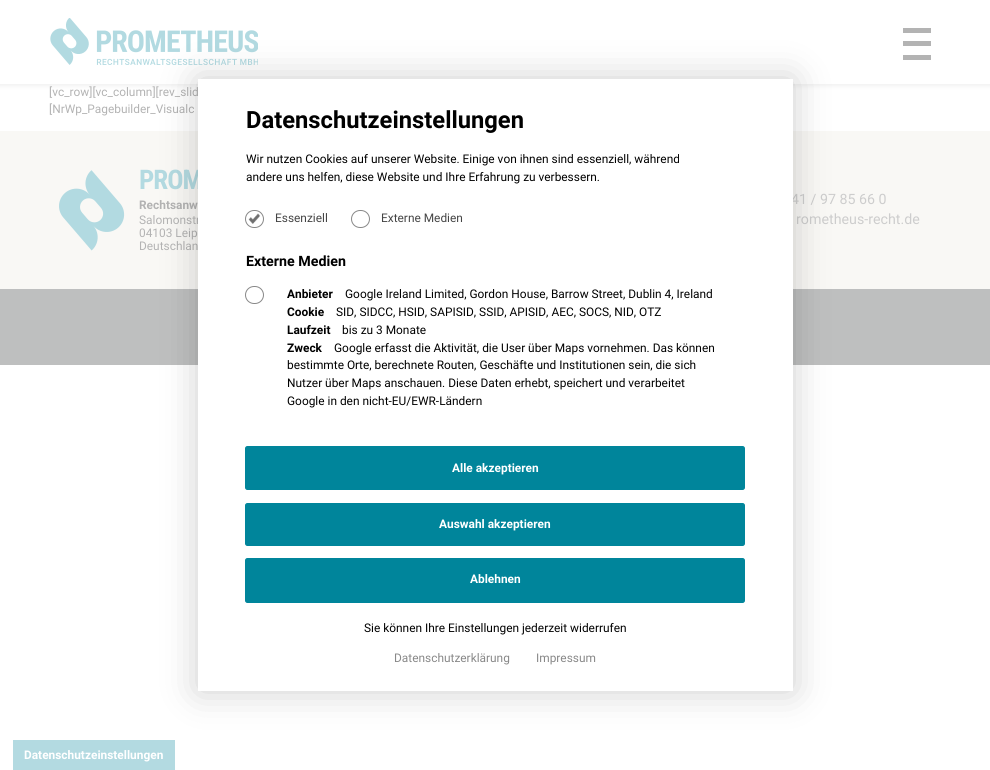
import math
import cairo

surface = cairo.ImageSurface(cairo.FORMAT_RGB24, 990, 770)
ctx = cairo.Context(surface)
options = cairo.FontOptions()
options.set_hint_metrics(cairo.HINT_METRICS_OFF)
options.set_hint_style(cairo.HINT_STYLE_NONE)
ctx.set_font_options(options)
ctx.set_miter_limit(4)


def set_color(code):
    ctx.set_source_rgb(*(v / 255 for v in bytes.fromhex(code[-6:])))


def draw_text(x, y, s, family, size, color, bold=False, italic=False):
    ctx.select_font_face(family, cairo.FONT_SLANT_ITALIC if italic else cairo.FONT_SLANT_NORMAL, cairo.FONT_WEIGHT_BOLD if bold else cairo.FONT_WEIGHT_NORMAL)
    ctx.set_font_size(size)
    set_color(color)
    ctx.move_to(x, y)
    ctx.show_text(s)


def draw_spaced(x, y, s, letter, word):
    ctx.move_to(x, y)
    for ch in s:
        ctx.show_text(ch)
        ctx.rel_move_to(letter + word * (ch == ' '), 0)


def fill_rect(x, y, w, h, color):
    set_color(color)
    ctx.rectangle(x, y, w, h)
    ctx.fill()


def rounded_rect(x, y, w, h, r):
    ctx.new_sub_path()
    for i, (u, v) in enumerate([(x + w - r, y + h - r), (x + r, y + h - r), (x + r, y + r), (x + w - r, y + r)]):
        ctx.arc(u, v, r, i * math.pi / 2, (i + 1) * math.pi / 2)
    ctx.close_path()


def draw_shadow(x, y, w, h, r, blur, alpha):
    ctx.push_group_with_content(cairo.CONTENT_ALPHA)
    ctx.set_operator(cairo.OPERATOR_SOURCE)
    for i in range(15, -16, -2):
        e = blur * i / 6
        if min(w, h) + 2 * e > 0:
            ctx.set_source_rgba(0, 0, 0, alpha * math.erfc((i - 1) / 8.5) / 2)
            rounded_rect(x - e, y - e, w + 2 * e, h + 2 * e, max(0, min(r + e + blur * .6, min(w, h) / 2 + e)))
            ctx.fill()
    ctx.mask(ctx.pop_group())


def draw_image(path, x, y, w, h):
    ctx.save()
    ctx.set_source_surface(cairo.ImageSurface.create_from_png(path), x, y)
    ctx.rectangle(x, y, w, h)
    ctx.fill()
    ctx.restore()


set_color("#ffffff")
ctx.paint()
set_color("#b3b3b3")
draw_shadow(-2, -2, 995, 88, 0, 2.5, 0.2)
fill_rect(0, 0, 990, 84, "#ffffff")
draw_image("assets/img1.png", 50, 18, 208, 47)
fill_rect(903, 28, 28, 5, "#b3b3b3")
fill_rect(903, 41, 28, 5, "#b3b3b3")
fill_rect(903, 55, 28, 5, "#b3b3b3")
draw_text(49, 96, "[vc_row][vc_column][rev_slid", "Roboto", 11.9, "#b3b3b3")
draw_text(49, 113, "[NrWp_Pagebuilder_Visualc", "Roboto", 11.9, "#b3b3b3")
fill_rect(0, 131, 990, 158, "#f9f8f5")
draw_image("assets/img2.png", 59, 170, 66, 81)
ctx.select_font_face("Roboto Condensed", cairo.FONT_SLANT_NORMAL, cairo.FONT_WEIGHT_BOLD)
ctx.set_font_size(27)
set_color("#b3dae1")
draw_spaced(139, 189, "PROM", -1, 0)
draw_text(139, 209, "Rechtsanw", "Roboto", 11.9, "#b3b3b3", bold=True)
draw_text(139, 224, "Salomonstr", "Roboto", 11.9, "#b3b3b3")
draw_text(139, 237, "04103 Leip", "Roboto", 11.9, "#b3b3b3")
draw_text(139, 250, "Deutschlan", "Roboto", 11.9, "#b3b3b3")
draw_text(791, 204, "41 / 97 85 66 0", "Roboto", 14.25, "#cdcdcd")
draw_text(796, 224, "rometheus-recht.de", "Roboto", 14.25, "#cdcdcd")
fill_rect(0, 289, 990, 76, "#bebfbf")
fill_rect(13, 740, 162, 30, "#b3dae1")
set_color("#000000")
draw_shadow(198, 79, 595, 612, 0, 18, 0.2)
fill_rect(198, 79, 595, 612, "#ffffff")
draw_text(246, 128, "Datenschutzeinstellungen", "Roboto", 23.75, "#000000", bold=True)
draw_text(246, 163, "Wir nutzen Cookies auf unserer Website. Einige von ihnen sind essenziell, während", "Roboto", 11.9, "#000000")
draw_text(246, 181, "andere uns helfen, diese Website und Ihre Erfahrung zu verbessern.", "Roboto", 11.9, "#000000")
rounded_rect(245.5, 210.5, 18, 17, 8.5)
set_color("#888888")
ctx.set_line_width(1)
ctx.stroke()
draw_image("assets/img3.png", 248, 213, 13, 11)
draw_text(275, 222, "Essenziell", "Roboto", 11.9, "#444444")
rounded_rect(351.5, 210.5, 18, 17, 8.5)
set_color("#888888")
ctx.stroke()
draw_text(381, 222, "Externe Medien", "Roboto", 11.9, "#444444")
draw_text(246, 266, "Externe Medien", "Roboto", 14.25, "#000000", bold=True)
rounded_rect(245.5, 286.5, 18, 17, 8.5)
set_color("#888888")
ctx.stroke()
draw_text(287, 298, "Anbieter", "Roboto", 11.9, "#000000", bold=True)
draw_text(345, 298, "Google Ireland Limited, Gordon House, Barrow Street, Dublin 4, Ireland", "Roboto", 11.9, "#000000")
draw_text(287, 316, "Cookie", "Roboto", 11.9, "#000000", bold=True)
draw_text(336, 316, "SID, SIDCC, HSID, SAPISID, SSID, APISID, AEC, SOCS, NID, OTZ", "Roboto", 11.9, "#000000")
draw_text(287, 334, "Laufzeit", "Roboto", 11.9, "#000000", bold=True)
draw_text(342, 334, "bis zu 3 Monate", "Roboto", 11.9, "#000000")
draw_text(287, 352, "Zweck", "Roboto", 11.9, "#000000", bold=True)
draw_text(334, 352, "Google erfasst die Aktivität, die User über Maps vornehmen. Das können", "Roboto", 11.9, "#000000")
draw_text(287, 369, "bestimmte Orte, berechnete Routen, Geschäfte und Institutionen sein, die sich", "Roboto", 11.9, "#000000")
draw_text(287, 387, "Nutzer über Maps anschauen. Diese Daten erhebt, speichert und verarbeitet", "Roboto", 11.9, "#000000")
draw_text(287, 405, "Google in den nicht-EU/EWR-Ländern", "Roboto", 11.9, "#000000")
set_color("#00859b")
rounded_rect(245.5, 446.5, 499, 43, 2)
ctx.fill_preserve()
ctx.stroke()
draw_text(452, 472, "Alle akzeptieren", "Roboto", 11.9, "#ffffff", bold=True)
set_color("#00859b")
rounded_rect(245.5, 503.5, 499, 42, 2)
ctx.fill_preserve()
ctx.stroke()
draw_text(439, 528, "Auswahl akzeptieren", "Roboto", 11.9, "#ffffff", bold=True)
set_color("#00859b")
rounded_rect(245.5, 558.5, 499, 44, 2)
ctx.fill_preserve()
ctx.stroke()
draw_text(470, 583, "Ablehnen", "Roboto", 11.9, "#ffffff", bold=True)
draw_text(364, 632, "Sie können Ihre Einstellungen jederzeit widerrufen", "Roboto", 11.9, "#000000")
draw_text(394, 662, "Datenschutzerklärung", "Roboto", 11.9, "#888888")
draw_text(536, 662, "Impressum", "Roboto", 11.9, "#888888")
draw_text(24, 759, "Datenschutzeinstellungen", "Roboto", 11.9, "#ffffff", bold=True)
surface.write_to_png("output.png")
